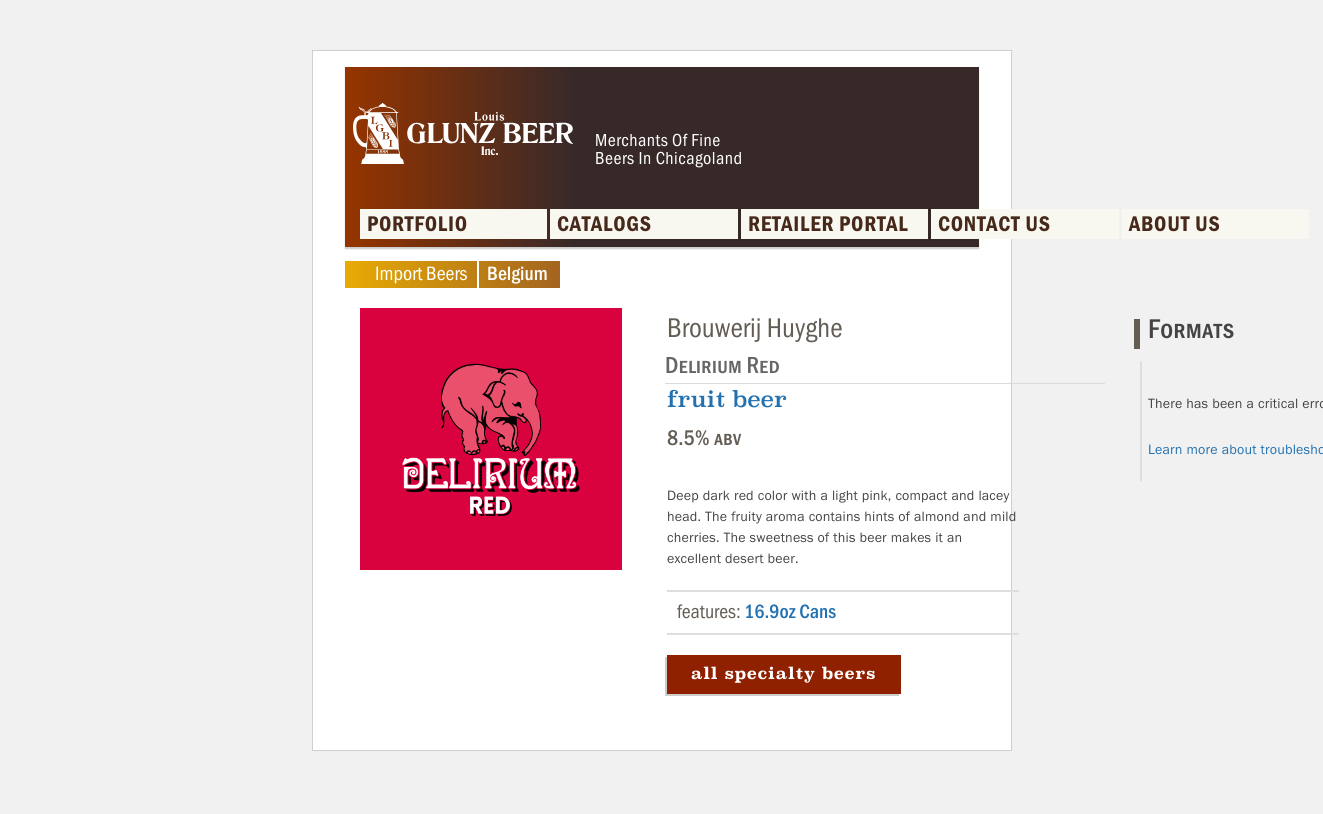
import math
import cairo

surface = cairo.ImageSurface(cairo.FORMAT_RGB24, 1323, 814)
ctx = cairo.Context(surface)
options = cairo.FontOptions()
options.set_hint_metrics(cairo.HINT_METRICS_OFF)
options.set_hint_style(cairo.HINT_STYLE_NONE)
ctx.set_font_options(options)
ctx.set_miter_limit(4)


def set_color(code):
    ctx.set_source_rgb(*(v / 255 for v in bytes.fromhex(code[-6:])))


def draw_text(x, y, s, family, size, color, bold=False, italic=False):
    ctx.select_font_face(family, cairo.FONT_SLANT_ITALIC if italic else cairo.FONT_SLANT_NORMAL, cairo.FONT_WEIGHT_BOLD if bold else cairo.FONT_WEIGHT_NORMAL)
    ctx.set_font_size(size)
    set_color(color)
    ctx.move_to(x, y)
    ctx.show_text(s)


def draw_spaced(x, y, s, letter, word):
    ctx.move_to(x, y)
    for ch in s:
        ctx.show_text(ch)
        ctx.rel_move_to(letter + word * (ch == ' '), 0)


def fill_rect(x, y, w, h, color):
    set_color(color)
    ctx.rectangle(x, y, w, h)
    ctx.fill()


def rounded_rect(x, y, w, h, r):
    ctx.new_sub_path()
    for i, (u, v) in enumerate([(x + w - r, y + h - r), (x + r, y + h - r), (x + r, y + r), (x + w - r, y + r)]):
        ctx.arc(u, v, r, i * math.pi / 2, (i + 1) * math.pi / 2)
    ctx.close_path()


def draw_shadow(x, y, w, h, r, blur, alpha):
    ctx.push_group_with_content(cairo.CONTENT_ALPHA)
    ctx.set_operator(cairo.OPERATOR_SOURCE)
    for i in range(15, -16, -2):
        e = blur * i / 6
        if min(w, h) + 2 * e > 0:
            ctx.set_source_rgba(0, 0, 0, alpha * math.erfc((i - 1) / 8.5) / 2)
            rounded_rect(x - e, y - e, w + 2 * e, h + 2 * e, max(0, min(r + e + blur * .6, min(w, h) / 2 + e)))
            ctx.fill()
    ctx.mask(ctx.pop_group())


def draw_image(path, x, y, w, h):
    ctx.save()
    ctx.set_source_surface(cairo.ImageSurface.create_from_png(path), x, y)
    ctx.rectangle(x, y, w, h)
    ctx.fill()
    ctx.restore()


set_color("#f1f1f1")
ctx.paint()
set_color("#ffffff")
ctx.rectangle(312.5, 50.5, 699, 700)
ctx.fill_preserve()
set_color("#ccd0d4")
ctx.set_line_width(1)
ctx.stroke()
set_color("#000000")
draw_shadow(345, 69, 634, 180, 0, 0.5, 0.2)
gradient = cairo.LinearGradient(345, 157, 979, 157)
gradient.add_color_stop_rgba(0.01, 0.58, 0.204, 0, 1)
gradient.add_color_stop_rgba(0.36, 0.22, 0.161, 0.161, 1)
ctx.set_source(gradient)
ctx.rectangle(345, 67, 634, 180)
ctx.fill()
draw_image("assets/img1.png", 353, 103, 220, 61)
ctx.select_font_face("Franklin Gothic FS")
ctx.set_font_size(18)
set_color("#ffffff")
draw_spaced(595, 146, "Merchants Of Fine", 0.5, 0)
draw_spaced(595, 164, "Beers In Chicagoland", 0.5, 0)
fill_rect(360, 209, 187, 30, "#f9f8f0")
ctx.select_font_face("Franklin Gothic FS SemiBold")
ctx.set_font_size(22)
set_color("#46291b")
draw_spaced(367, 231, "PORTFOLIO", 0.75, 0)
fill_rect(550, 209, 188, 30, "#f9f8f0")
set_color("#46291b")
draw_spaced(557, 231, "CATALOGS", 0.75, 0)
fill_rect(741, 209, 187, 30, "#f9f8f0")
set_color("#46291b")
draw_spaced(748, 231, "RETAILER PORTAL", 0.75, 0)
fill_rect(931, 209, 188, 30, "#f9f8f0")
set_color("#46291b")
draw_spaced(938, 231, "CONTACT US", 0.75, 0)
fill_rect(1122, 209, 187, 30, "#f9f8f0")
set_color("#46291b")
draw_spaced(1129, 231, "ABOUT US", 0.75, 0)
gradient = cairo.LinearGradient(560, 275, 345, 275)
gradient.add_color_stop_rgba(0.01, 0.639, 0.396, 0.122, 1)
gradient.add_color_stop_rgba(0.99, 0.906, 0.667, 0.016, 1)
ctx.set_source(gradient)
ctx.rectangle(345, 261, 215, 27)
ctx.fill()
fill_rect(477, 261, 2, 27, "#ffffff")
draw_text(375, 280, "Import Beers", "Franklin Gothic FS", 20, "#ffffff")
draw_text(487, 280, "Belgium", "Franklin Gothic FS Medium", 20, "#ffffff")
draw_image("assets/img2.png", 360, 308, 262, 262)
draw_text(667, 337, "Brouwerij Huyghe", "Franklin Gothic FS", 28, "#645d54")
fill_rect(665, 383, 440, 1, "#dadada")
draw_text(665, 373, "Delirium Red", "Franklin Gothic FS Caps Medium", 24, "#666666")
draw_text(667, 407, "fruit beer", "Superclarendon", 22, "#2271b1")
draw_text(667, 445, "8.5%", "Franklin Gothic FS Medium", 22, "#645d54")
draw_text(714, 445, "abv", "Franklin Gothic FS Caps Medium", 22, "#645d54")
ctx.select_font_face("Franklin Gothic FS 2")
ctx.set_font_size(14)
set_color("#444444")
draw_spaced(667, 500, "Deep dark red color with a light pink, compact and lacey", 0.17, 0.25)
draw_spaced(667, 521, "head. The fruity aroma contains hints of almond and mild", 0.17, 0.25)
draw_spaced(667, 542, "cherries. The sweetness of this beer makes it an", 0.17, 0.25)
draw_spaced(667, 563, "excellent desert beer.", 0.17, 0.25)
fill_rect(667, 590, 352, 2, "#dedede")
fill_rect(667, 633, 352, 2, "#dedede")
draw_text(677, 618, "features:", "Franklin Gothic FS", 20, "#645d54")
draw_text(744, 618, "16.9oz Cans", "Franklin Gothic FS Medium", 20, "#2271b1")
set_color("#cccccc")
ctx.new_path()
ctx.move_to(665, 657)
ctx.line_to(665, 696)
ctx.line_to(899, 696)
ctx.line_to(899, 694)
ctx.line_to(667, 694)
ctx.line_to(667, 657)
ctx.close_path()
ctx.fill()
fill_rect(667, 655, 234, 39, "#8f2100")
ctx.select_font_face("Superclarendon", cairo.FONT_SLANT_NORMAL, cairo.FONT_WEIGHT_BOLD)
ctx.set_font_size(16)
set_color("#ffffff")
draw_spaced(691, 679, "all specialty beers", 0.75, 0)
fill_rect(1134, 319, 6, 30, "#645d54")
draw_text(1148, 338, "Formats", "Franklin Gothic FS Caps Medium", 28, "#444444")
fill_rect(1140, 361, 2, 120, "#dedede")
ctx.select_font_face("Franklin Gothic FS 2")
ctx.set_font_size(14)
set_color("#444444")
draw_spaced(1148, 408, "There has been a critical erro", 0.17, 0.25)
set_color("#2271b1")
draw_spaced(1148, 454, "Learn more about troublesho", 0.17, 0.25)
surface.write_to_png("output.png")
